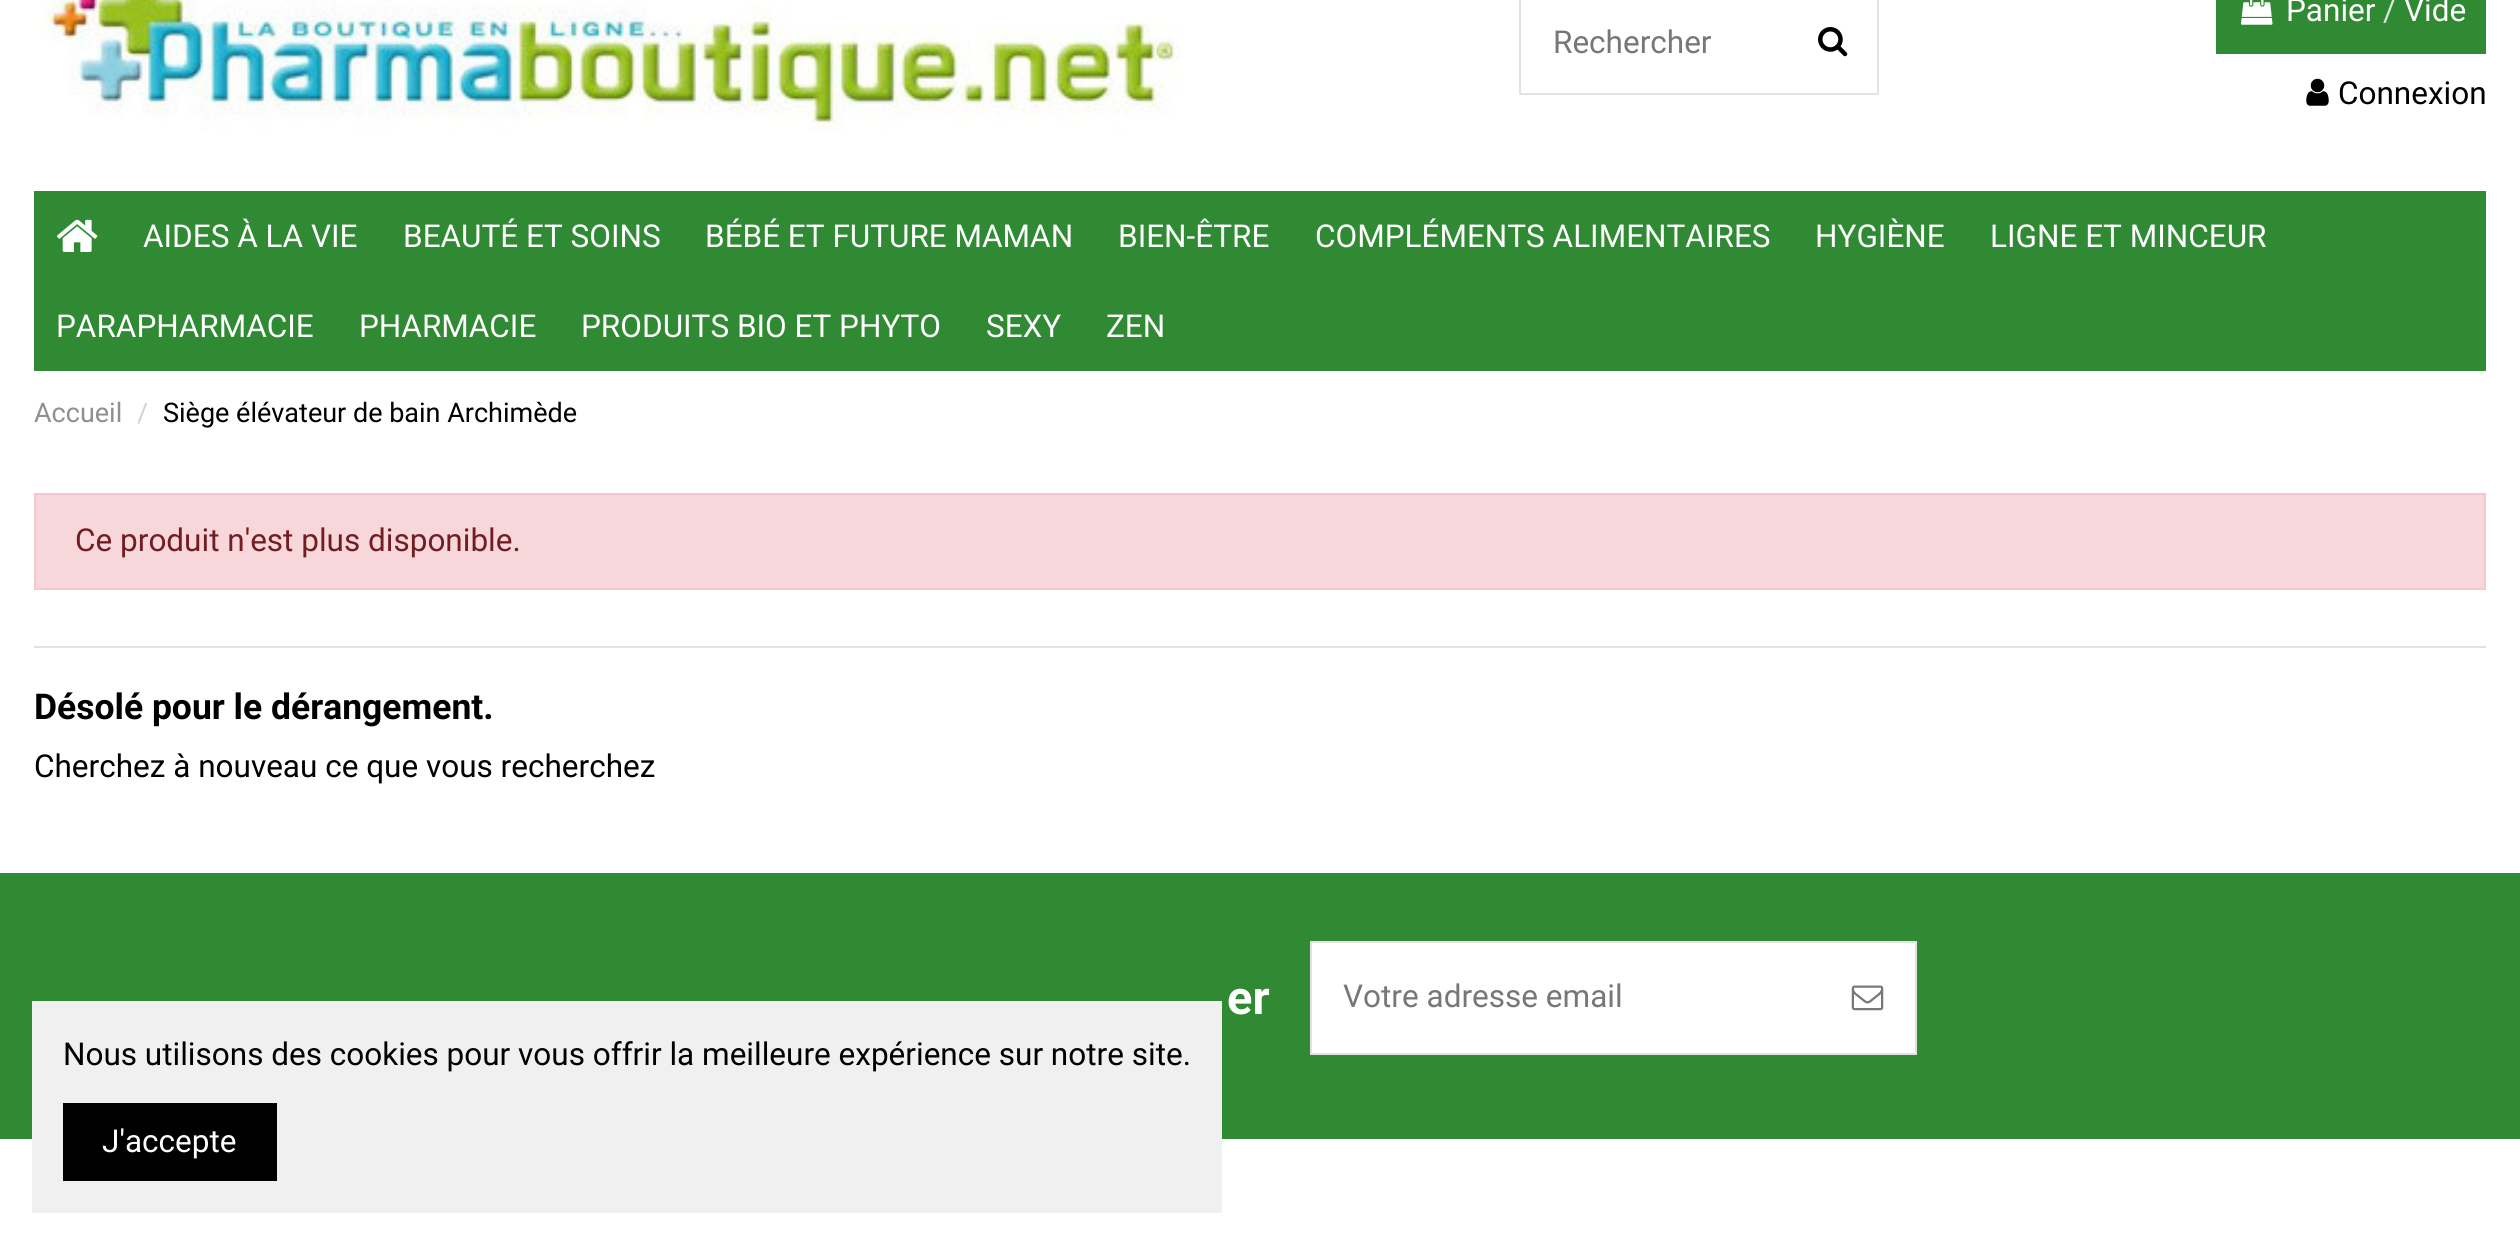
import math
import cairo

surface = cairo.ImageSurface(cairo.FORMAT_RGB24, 2520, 1244)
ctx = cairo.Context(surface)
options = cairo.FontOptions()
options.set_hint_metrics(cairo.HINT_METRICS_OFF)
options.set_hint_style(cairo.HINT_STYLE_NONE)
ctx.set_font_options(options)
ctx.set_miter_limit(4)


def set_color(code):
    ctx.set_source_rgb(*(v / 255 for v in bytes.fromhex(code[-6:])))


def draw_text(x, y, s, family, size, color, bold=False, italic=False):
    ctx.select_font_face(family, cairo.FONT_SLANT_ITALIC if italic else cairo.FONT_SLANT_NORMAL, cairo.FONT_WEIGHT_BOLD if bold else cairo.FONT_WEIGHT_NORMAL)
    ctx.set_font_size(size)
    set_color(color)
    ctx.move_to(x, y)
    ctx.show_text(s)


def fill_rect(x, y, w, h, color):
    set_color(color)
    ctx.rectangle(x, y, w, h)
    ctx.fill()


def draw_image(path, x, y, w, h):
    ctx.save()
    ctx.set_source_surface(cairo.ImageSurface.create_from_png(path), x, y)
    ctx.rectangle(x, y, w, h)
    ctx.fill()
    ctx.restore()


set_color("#ffffff")
ctx.paint()
draw_image("assets/img1.png", 34, 0, 1147, 133)
ctx.rectangle(1520, -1, 358, 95)
set_color("#e3e3e3")
ctx.stroke()
draw_text(1553, 53, "Rechercher", "Roboto", 31.5, "#777777")
draw_image("assets/img2.png", 1818, 27, 30, 30)
fill_rect(2216, 0, 270, 54, "#308a33")
draw_image("assets/img3.png", 2241, 0, 32, 25)
draw_text(2286, 21, "Panier", "Roboto", 31.5, "#ffffff")
draw_text(2383, 21, "/", "Roboto", 31.5, "#d6e8d6")
draw_text(2404, 21, "Vide", "Roboto", 31.5, "#ffffff")
draw_image("assets/img4.png", 2306, 78, 23, 28)
draw_text(2338, 104, "Connexion", "Roboto", 31.5, "#000000")
fill_rect(34, 191, 2452, 180, "#308a33")
draw_image("assets/img5.png", 57, 219, 41, 33)
draw_text(143, 247, "AIDES À LA VIE", "Roboto", 31.5, "#ffffff")
draw_text(403, 247, "BEAUTÉ ET SOINS", "Roboto", 31.5, "#ffffff")
draw_text(705, 247, "BÉBÉ ET FUTURE MAMAN", "Roboto", 31.5, "#ffffff")
draw_text(1118, 247, "BIEN-ÊTRE", "Roboto", 31.5, "#ffffff")
draw_text(1315, 247, "COMPLÉMENTS ALIMENTAIRES", "Roboto", 31.5, "#ffffff")
draw_text(1815, 247, "HYGIÈNE", "Roboto", 31.5, "#ffffff")
draw_text(1990, 247, "LIGNE ET MINCEUR", "Roboto", 31.5, "#ffffff")
draw_text(56, 337, "PARAPHARMACIE", "Roboto", 31.5, "#ffffff")
draw_text(359, 337, "PHARMACIE", "Roboto", 31.5, "#ffffff")
draw_text(581, 337, "PRODUITS BIO ET PHYTO", "Roboto", 31.5, "#ffffff")
draw_text(986, 337, "SEXY", "Roboto", 31.5, "#ffffff")
draw_text(1106, 337, "ZEN", "Roboto", 31.5, "#ffffff")
draw_text(34, 422, "Accueil", "Roboto", 27, "#8f8f8f")
draw_text(137, 422, "/", "Roboto", 27, "#d2d2d2")
draw_text(163, 422, "Siège élévateur de bain Archimède", "Roboto", 27, "#000000")
set_color("#f8d7da")
ctx.rectangle(35, 494, 2450, 95)
ctx.fill_preserve()
set_color("#f5c6cb")
ctx.stroke()
draw_text(75, 551, "Ce produit n'est plus disponible.", "Roboto", 31.5, "#721c24")
fill_rect(34, 646, 2452, 2, "#e3e3e3")
draw_text(34, 719, "Désolé pour le dérangement.", "Roboto", 35.5, "#000000", bold=True)
draw_text(34, 777, "Cherchez à nouveau ce que vous recherchez", "Roboto", 31.5, "#000000")
fill_rect(0, 873, 2520, 266, "#308a33")
draw_text(1227, 1014, "er", "Roboto", 47, "#ffffff", bold=True)
ctx.rectangle(1311, 942, 605, 112)
ctx.fill_preserve()
set_color("#e3e3e3")
ctx.stroke()
draw_text(1343, 1007, "Votre adresse email", "Roboto", 31.5, "#777777")
draw_image("assets/img6.png", 1851, 985, 33, 26)
fill_rect(32, 1001, 1190, 212, "#f0f0f0")
draw_text(63, 1065, "Nous utilisons des cookies pour vous offrir la meilleure expérience sur notre site.", "Roboto", 31.5, "#000000")
fill_rect(63, 1103, 214, 78, "#000000")
draw_text(102, 1152, "J'accepte", "Roboto", 31.5, "#ffffff")
surface.write_to_png("output.png")
